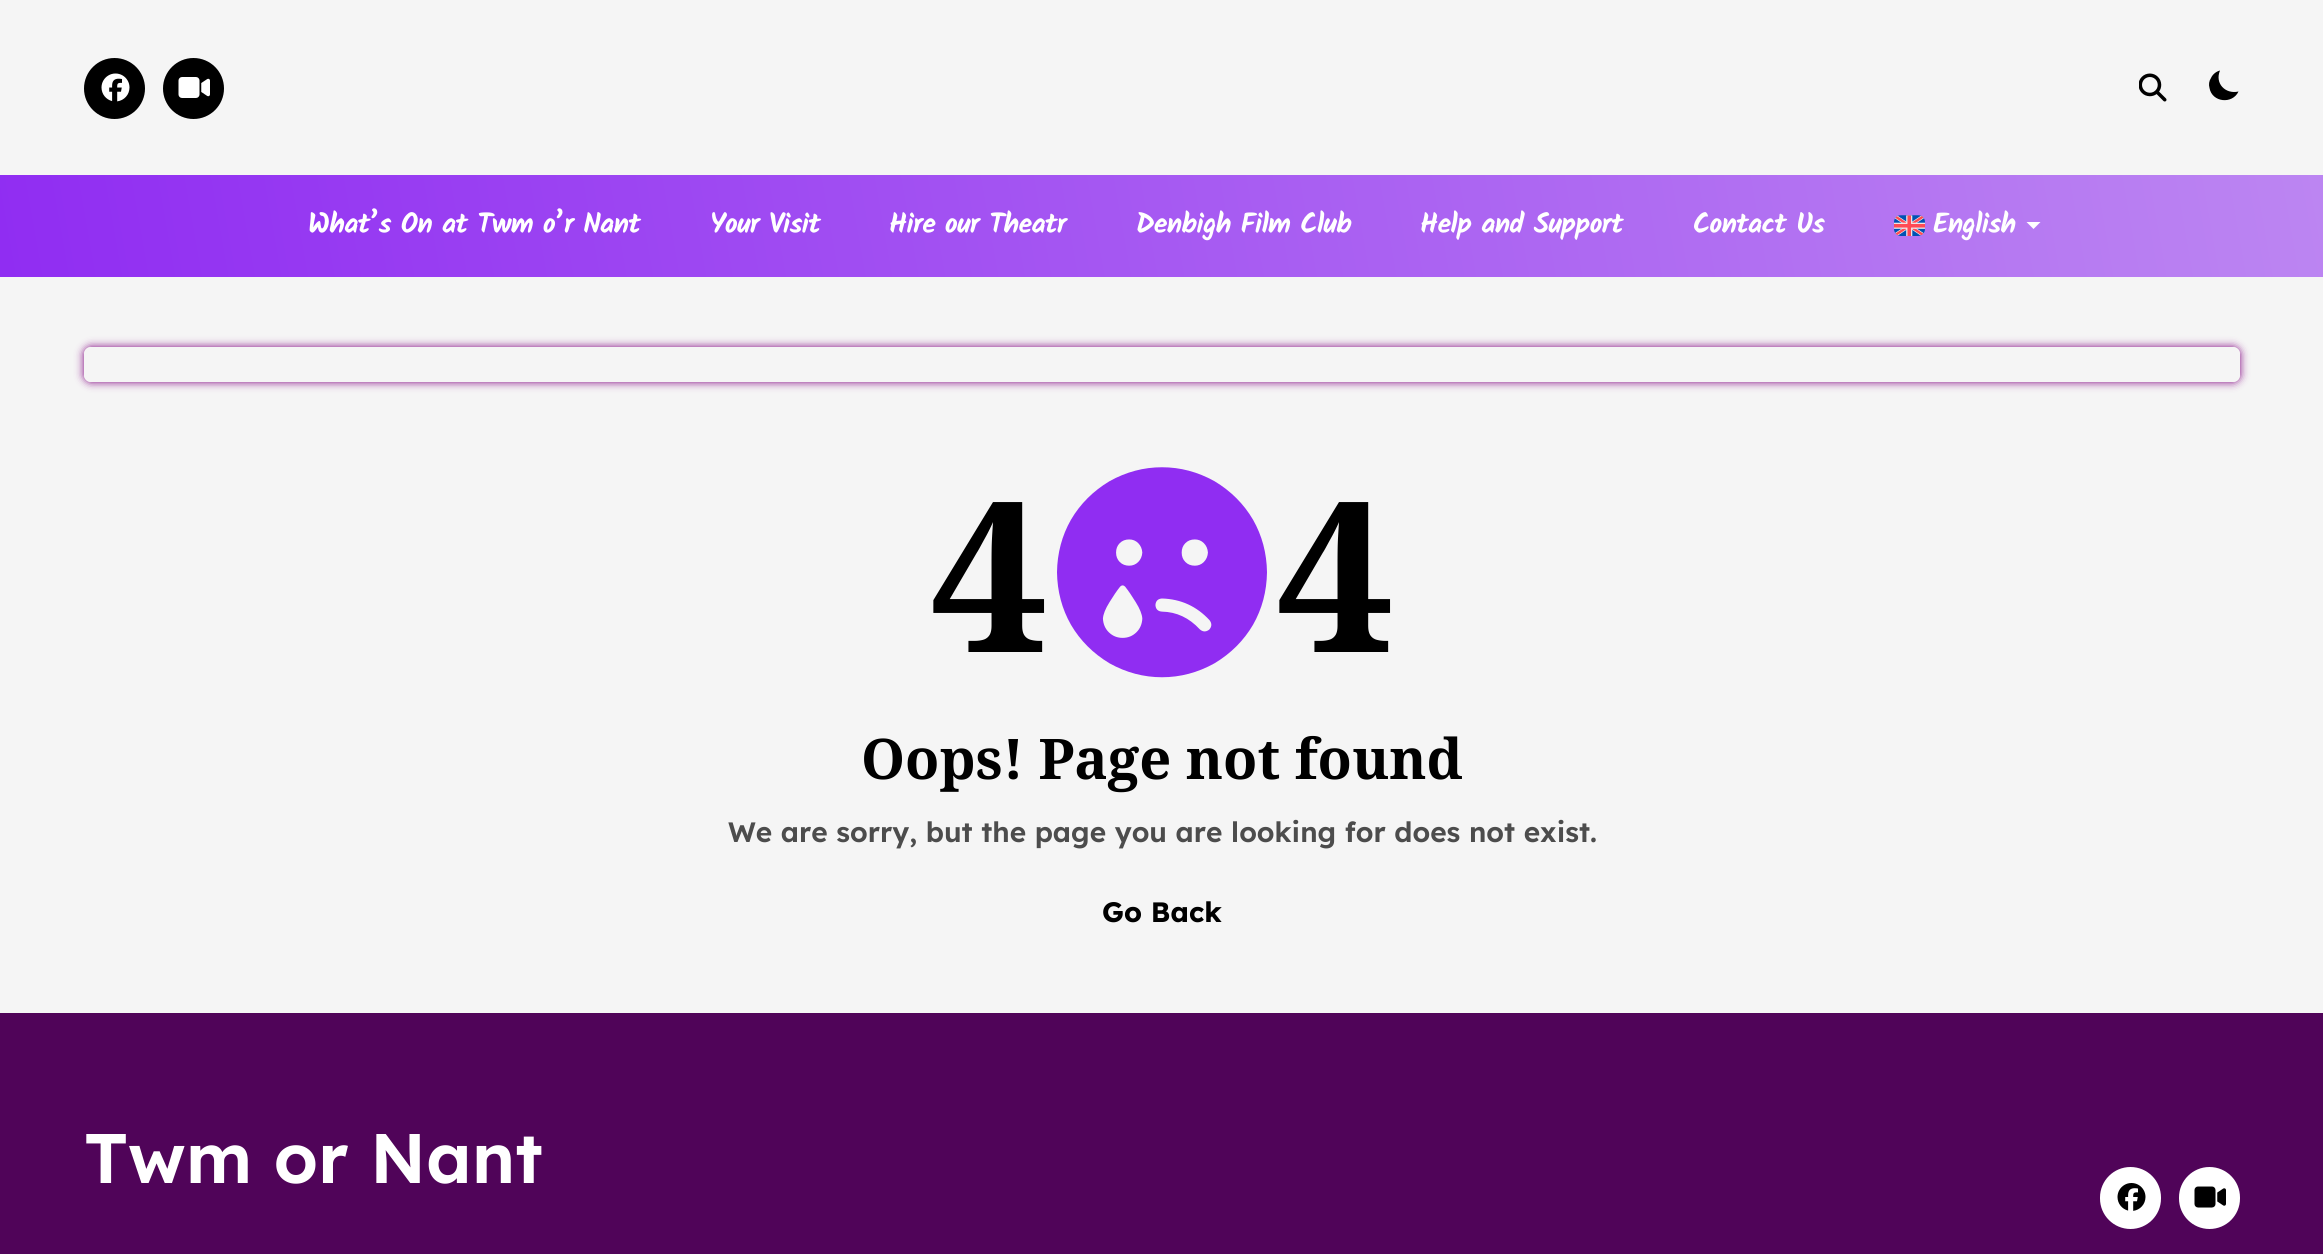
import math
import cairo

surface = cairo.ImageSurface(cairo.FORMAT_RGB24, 2323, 1254)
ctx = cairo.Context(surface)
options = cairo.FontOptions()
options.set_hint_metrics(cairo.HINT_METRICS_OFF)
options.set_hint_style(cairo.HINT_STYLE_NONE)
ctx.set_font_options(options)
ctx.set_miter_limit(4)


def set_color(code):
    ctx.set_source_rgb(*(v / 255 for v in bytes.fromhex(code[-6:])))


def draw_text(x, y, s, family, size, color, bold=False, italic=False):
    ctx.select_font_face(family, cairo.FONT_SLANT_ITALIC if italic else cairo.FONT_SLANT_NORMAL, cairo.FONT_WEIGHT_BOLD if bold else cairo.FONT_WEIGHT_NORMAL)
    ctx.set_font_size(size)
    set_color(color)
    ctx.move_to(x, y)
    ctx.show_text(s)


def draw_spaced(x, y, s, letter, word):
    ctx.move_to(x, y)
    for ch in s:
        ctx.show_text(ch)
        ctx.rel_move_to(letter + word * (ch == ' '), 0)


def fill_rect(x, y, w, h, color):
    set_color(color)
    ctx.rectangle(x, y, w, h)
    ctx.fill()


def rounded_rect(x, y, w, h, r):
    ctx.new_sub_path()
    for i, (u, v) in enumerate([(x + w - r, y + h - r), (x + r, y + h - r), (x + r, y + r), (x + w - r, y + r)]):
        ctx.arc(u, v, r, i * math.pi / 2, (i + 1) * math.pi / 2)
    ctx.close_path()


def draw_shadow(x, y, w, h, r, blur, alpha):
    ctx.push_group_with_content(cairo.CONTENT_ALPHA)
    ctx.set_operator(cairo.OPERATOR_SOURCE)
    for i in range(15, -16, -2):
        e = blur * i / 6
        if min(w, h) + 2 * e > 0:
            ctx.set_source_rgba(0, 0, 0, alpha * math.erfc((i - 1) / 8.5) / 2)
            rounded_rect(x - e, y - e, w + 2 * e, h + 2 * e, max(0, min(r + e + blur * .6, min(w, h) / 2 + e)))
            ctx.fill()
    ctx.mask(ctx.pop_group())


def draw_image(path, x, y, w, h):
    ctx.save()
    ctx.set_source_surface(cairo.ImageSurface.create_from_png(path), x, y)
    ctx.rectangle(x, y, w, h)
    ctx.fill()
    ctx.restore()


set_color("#f5f5f5")
ctx.paint()
set_color("#000000")
ctx.arc(114.5, 88.5, 30.5, 0, 2 * math.pi)
ctx.fill()
draw_image("assets/img1.png", 101, 73, 29, 29)
ctx.arc(193.5, 88.5, 30.5, 0, 2 * math.pi)
ctx.fill()
draw_image("assets/img2.png", 178, 77, 32, 21)
draw_image("assets/img3.png", 2139, 73, 28, 29)
ctx.new_path()
ctx.move_to(2238.5, 91.5)
ctx.curve_to(2225.5, 94.5, 2214.5, 83.5, 2220, 70.5)
ctx.curve_to(2216, 71.5, 2212.5, 74.5, 2211, 78)
ctx.curve_to(2209, 81, 2208.5, 84.5, 2209.5, 88)
ctx.curve_to(2212, 102.5, 2232.5, 104.5, 2238.5, 91.5)
ctx.close_path()
ctx.fill()
gradient = cairo.LinearGradient(2298, 26, 26, 426)
gradient.add_color_stop_rgba(0, 0.737, 0.522, 0.949, 1)
gradient.add_color_stop_rgba(1, 0.565, 0.176, 0.949, 1)
ctx.set_source(gradient)
ctx.rectangle(0, 175, 2323, 102)
ctx.fill()
ctx.select_font_face("Kalam", cairo.FONT_SLANT_NORMAL, cairo.FONT_WEIGHT_BOLD)
ctx.set_font_size(28)
set_color("#ffffff")
draw_spaced(308, 233, "What’s On at Twm o’r Nant", -0.8, 0)
draw_spaced(710, 233, "Your Visit", -0.8, 0)
draw_spaced(889, 233, "Hire our Theatr", -0.8, 0)
draw_spaced(1136, 233, "Denbigh Film Club", -0.8, 0)
draw_spaced(1420, 233, "Help and Support", -0.8, 0)
draw_spaced(1693, 233, "Contact Us", -0.8, 0)
draw_image("assets/img4.png", 1894, 215, 31, 21)
draw_spaced(1933, 233, "English", -0.8, 0)
ctx.new_path()
ctx.move_to(2026.5, 222)
ctx.line_to(2040.5, 222)
ctx.line_to(2033.5, 229)
ctx.close_path()
ctx.fill()
ctx.save()
ctx.set_fill_rule(cairo.FILL_RULE_EVEN_ODD)
ctx.new_path()
ctx.move_to(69, 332)
ctx.line_to(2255, 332)
ctx.line_to(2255, 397)
ctx.line_to(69, 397)
ctx.close_path()
ctx.move_to(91, 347)
ctx.line_to(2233, 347)
ctx.curve_to(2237, 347, 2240, 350, 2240, 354)
ctx.line_to(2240, 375)
ctx.curve_to(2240, 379, 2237, 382, 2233, 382)
ctx.line_to(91, 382)
ctx.curve_to(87, 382, 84, 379, 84, 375)
ctx.line_to(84, 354)
ctx.curve_to(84, 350, 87, 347, 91, 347)
ctx.close_path()
ctx.clip()
set_color("#800080")
draw_shadow(84, 347, 2156, 35, 7, 4.5, 1)
ctx.restore()
draw_text(930, 652, "4", "Noto Serif", 210, "#000000", bold=True)
draw_image("assets/img5.png", 1057, 467, 210, 211)
draw_text(1276, 652, "4", "Noto Serif", 210, "#000000", bold=True)
draw_text(861, 779, "Oops! Page not found", "Noto Serif", 56, "#000000", bold=True)
draw_text(728, 842, "We are sorry, but the page you are looking for does not exist.", "Lexend SemiBold", 28, "#4c4c4c")
draw_text(1102, 922, "Go Back", "Lexend", 28, "#000000", bold=True)
fill_rect(0, 1013, 2323, 241, "#500459")
draw_text(84, 1183, "Twm or Nant", "Lexend SemiBold", 70, "#ffffff")
rounded_rect(2100, 1167, 61, 62, 30.5)
ctx.fill()
draw_image("assets/img6.png", 2117, 1183, 29, 28)
rounded_rect(2179, 1167, 61, 62, 30.5)
ctx.fill()
draw_image("assets/img7.png", 2194, 1186, 32, 22)
surface.write_to_png("output.png")
